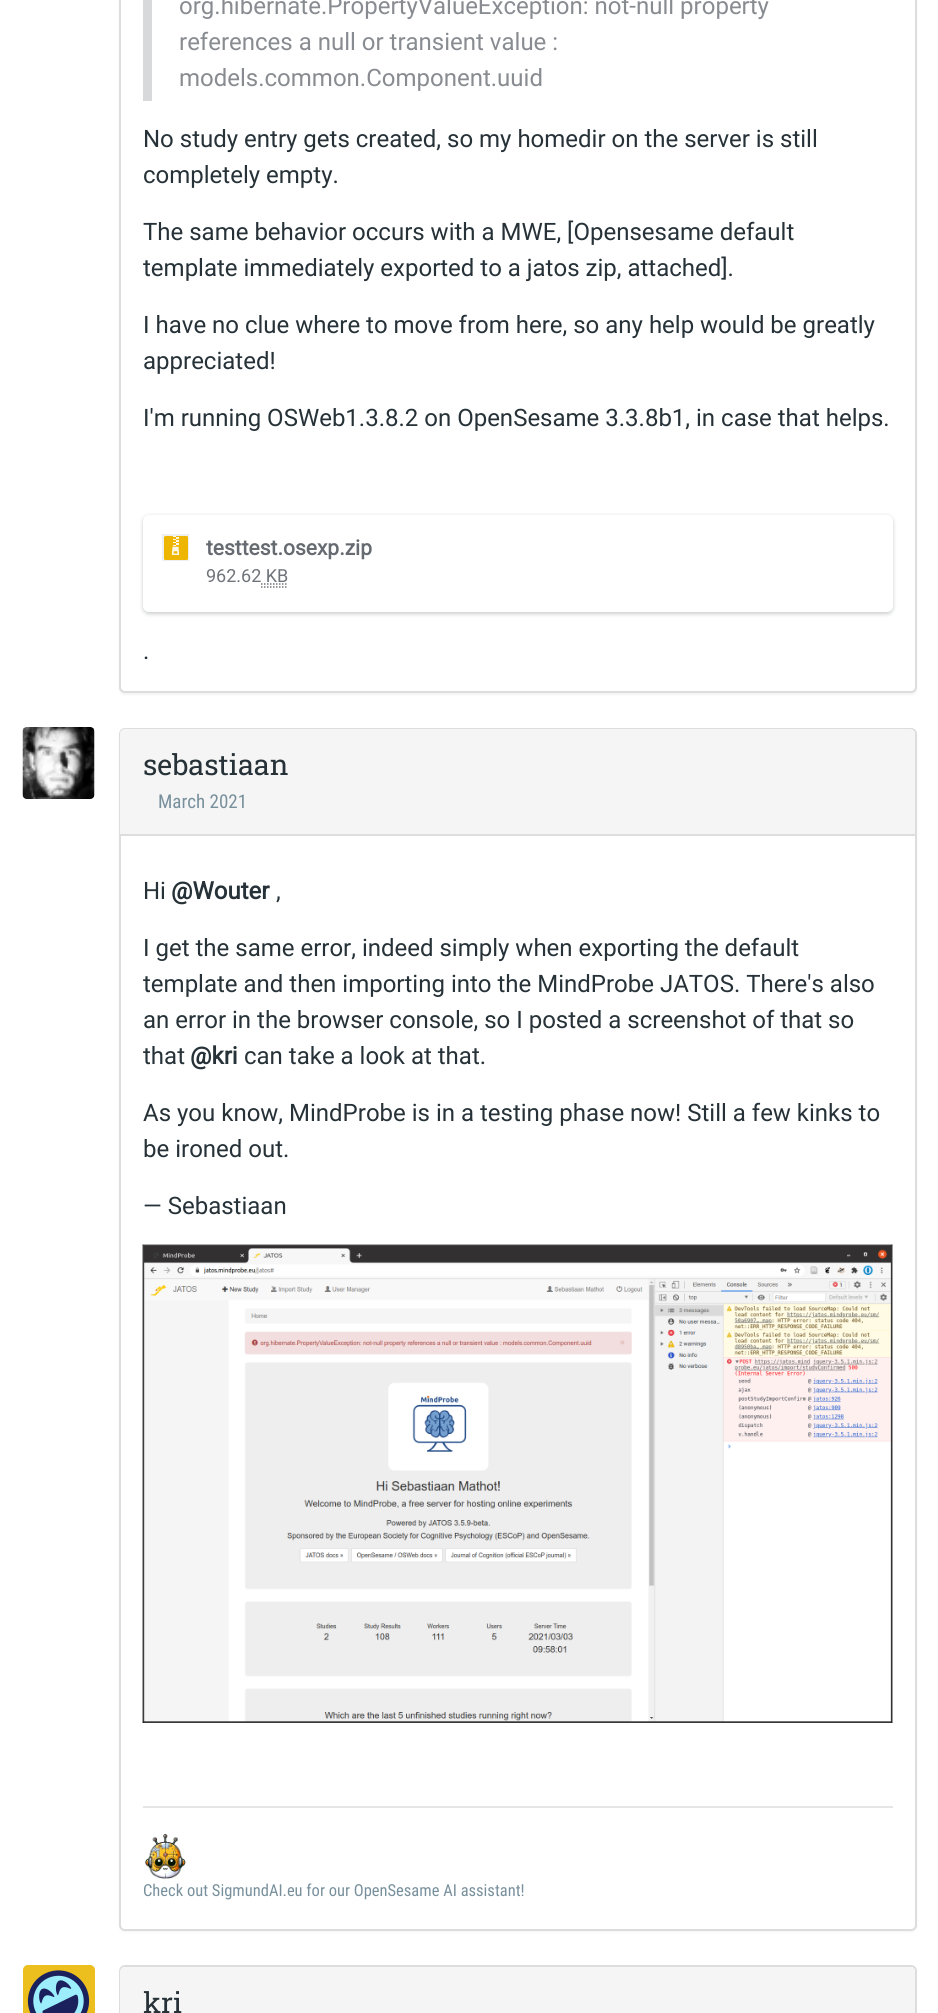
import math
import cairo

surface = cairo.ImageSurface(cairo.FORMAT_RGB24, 938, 2013)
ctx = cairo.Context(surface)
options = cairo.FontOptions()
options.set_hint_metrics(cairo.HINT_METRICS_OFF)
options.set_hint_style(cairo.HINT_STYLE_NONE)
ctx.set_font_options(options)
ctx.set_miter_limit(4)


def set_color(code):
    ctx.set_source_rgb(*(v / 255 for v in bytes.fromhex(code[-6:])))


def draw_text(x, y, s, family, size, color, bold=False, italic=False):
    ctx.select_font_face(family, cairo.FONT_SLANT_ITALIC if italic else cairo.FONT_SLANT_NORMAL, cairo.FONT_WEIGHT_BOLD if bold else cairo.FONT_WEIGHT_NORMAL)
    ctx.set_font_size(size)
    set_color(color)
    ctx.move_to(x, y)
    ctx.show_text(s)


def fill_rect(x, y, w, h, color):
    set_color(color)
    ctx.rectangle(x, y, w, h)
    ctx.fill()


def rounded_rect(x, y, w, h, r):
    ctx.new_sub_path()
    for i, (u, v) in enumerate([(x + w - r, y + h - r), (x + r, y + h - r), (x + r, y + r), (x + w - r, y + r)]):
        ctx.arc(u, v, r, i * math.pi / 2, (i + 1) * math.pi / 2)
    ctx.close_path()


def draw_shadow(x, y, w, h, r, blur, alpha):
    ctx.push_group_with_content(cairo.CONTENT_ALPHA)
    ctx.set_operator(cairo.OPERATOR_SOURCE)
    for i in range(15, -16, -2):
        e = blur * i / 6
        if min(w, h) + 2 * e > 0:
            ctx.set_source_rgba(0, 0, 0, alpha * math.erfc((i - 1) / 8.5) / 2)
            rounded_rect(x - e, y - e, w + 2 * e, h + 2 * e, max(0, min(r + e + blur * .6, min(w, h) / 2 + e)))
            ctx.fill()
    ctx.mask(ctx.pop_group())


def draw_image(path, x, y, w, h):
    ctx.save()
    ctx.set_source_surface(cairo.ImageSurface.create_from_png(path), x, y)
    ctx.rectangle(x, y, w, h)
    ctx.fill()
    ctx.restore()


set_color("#ffffff")
ctx.paint()
set_color("#000000")
draw_shadow(119, -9, 798, 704, 6, 1, 0.05)
set_color("#ffffff")
rounded_rect(120, -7, 796, 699, 5)
ctx.fill_preserve()
set_color("#dddddd")
ctx.stroke()
fill_rect(143, 0, 9, 101, "#d8d9db")
draw_text(179, 14, "org.hibernate.PropertyValueException: not-null property", "Roboto", 24, "#888c91")
draw_text(179, 50, "references a null or transient value :", "Roboto", 24, "#888c91")
draw_text(179, 86, "models.common.Component.uuid", "Roboto", 24, "#888c91")
draw_text(143, 147, "No study entry gets created, so my homedir on the server is still", "Roboto", 24, "#263238")
draw_text(143, 183, "completely empty.", "Roboto", 24, "#263238")
draw_text(143, 240, "The same behavior occurs with a MWE, [Opensesame default", "Roboto", 24, "#263238")
draw_text(143, 276, "template immediately exported to a jatos zip, attached].", "Roboto", 24, "#263238")
draw_text(143, 333, "I have no clue where to move from here, so any help would be greatly", "Roboto", 24, "#263238")
draw_text(143, 369, "appreciated!", "Roboto", 24, "#263238")
draw_text(143, 426, "I'm running OSWeb1.3.8.2 on OpenSesame 3.3.8b1, in case that helps.", "Roboto", 24, "#263238")
set_color("#555a62")
draw_shadow(143, 516, 750, 98, 6, 2, 0.3)
set_color("#ffffff")
rounded_rect(143, 515, 750, 97, 6)
ctx.fill()
ctx.rectangle(163, 535, 25, 25)
set_color("#eeefef")
ctx.stroke()
draw_image("assets/img1.png", 164, 536, 24, 24)
draw_text(206, 555, "testtest.osexp.zip", "Roboto", 21, "#666b72", bold=True)
draw_text(206, 582, "962.62 KB", "Roboto", 18, "#6f737a")
ctx.new_path()
ctx.move_to(261, 584)
ctx.line_to(288, 584)
ctx.set_line_width(1.5)
ctx.set_dash([1.5, 1.5])
ctx.stroke()
ctx.new_path()
ctx.move_to(261, 587)
ctx.line_to(288, 587)
set_color("#777777")
ctx.stroke()
draw_text(143, 659, ".", "Roboto", 24, "#263238")
set_color("#000000")
draw_shadow(119, 729, 798, 1203, 6, 1, 0.05)
set_color("#ffffff")
rounded_rect(120, 729, 796, 1201, 5)
ctx.fill_preserve()
set_color("#dddddd")
ctx.set_line_width(2)
ctx.set_dash([])
ctx.stroke()
set_color("#f5f5f5")
ctx.new_path()
ctx.move_to(125, 729)
ctx.line_to(910, 729)
ctx.curve_to(913, 729, 915, 731, 915, 734)
ctx.line_to(915, 836)
ctx.line_to(120, 836)
ctx.line_to(120, 734)
ctx.curve_to(120, 731, 122, 729, 125, 729)
ctx.close_path()
ctx.fill()
fill_rect(120, 834, 795, 2, "#dddddd")
draw_image("assets/img2.png", 22, 727, 73, 72)
draw_text(143, 775, "sebastiaan", "Roboto Slab", 28.75, "#263238")
draw_text(158, 808, "March 2021", "Roboto Condensed", 19, "#78909c")
draw_text(143, 899, "Hi", "Roboto", 24, "#263238")
draw_text(171, 899, "@Wouter", "Roboto", 24, "#263238", bold=True)
draw_text(276, 899, ",", "Roboto", 24, "#263238")
draw_text(143, 956, "I get the same error, indeed simply when exporting the default", "Roboto", 24, "#263238")
draw_text(143, 992, "template and then importing into the MindProbe JATOS. There's also", "Roboto", 24, "#263238")
draw_text(143, 1028, "an error in the browser console, so I posted a screenshot of that so", "Roboto", 24, "#263238")
draw_text(143, 1064, "that", "Roboto", 24, "#263238")
draw_text(190, 1064, "@kri", "Roboto", 24, "#263238", bold=True)
draw_text(244, 1064, "can take a look at that.", "Roboto", 24, "#263238")
draw_text(143, 1121, "As you know, MindProbe is in a testing phase now! Still a few kinks to", "Roboto", 24, "#263238")
draw_text(143, 1157, "be ironed out.", "Roboto", 24, "#263238")
draw_text(143, 1214, "— Sebastiaan", "Roboto", 24, "#263238")
draw_image("assets/img3.png", 142, 1244, 751, 479)
fill_rect(143, 1806, 750, 2, "#e6e6e6")
draw_image("assets/img4.png", 145, 1834, 41, 45)
draw_text(143, 1896, "Check out SigmundAI.eu for our OpenSesame AI assistant!", "Roboto Condensed", 16.5, "#78909c")
rounded_rect(120, 1966, 796, 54, 5)
set_color("#dddddd")
ctx.stroke()
set_color("#f5f5f5")
ctx.new_path()
ctx.move_to(125, 1967)
ctx.line_to(910, 1967)
ctx.curve_to(913, 1967, 915, 1969, 915, 1972)
ctx.line_to(915, 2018)
ctx.line_to(120, 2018)
ctx.line_to(120, 1972)
ctx.curve_to(120, 1969, 122, 1967, 125, 1967)
ctx.close_path()
ctx.fill()
draw_image("assets/img5.png", 23, 1965, 72, 48)
draw_text(143, 2013, "kri", "Roboto Slab", 28.75, "#263238")
surface.write_to_png("output.png")
